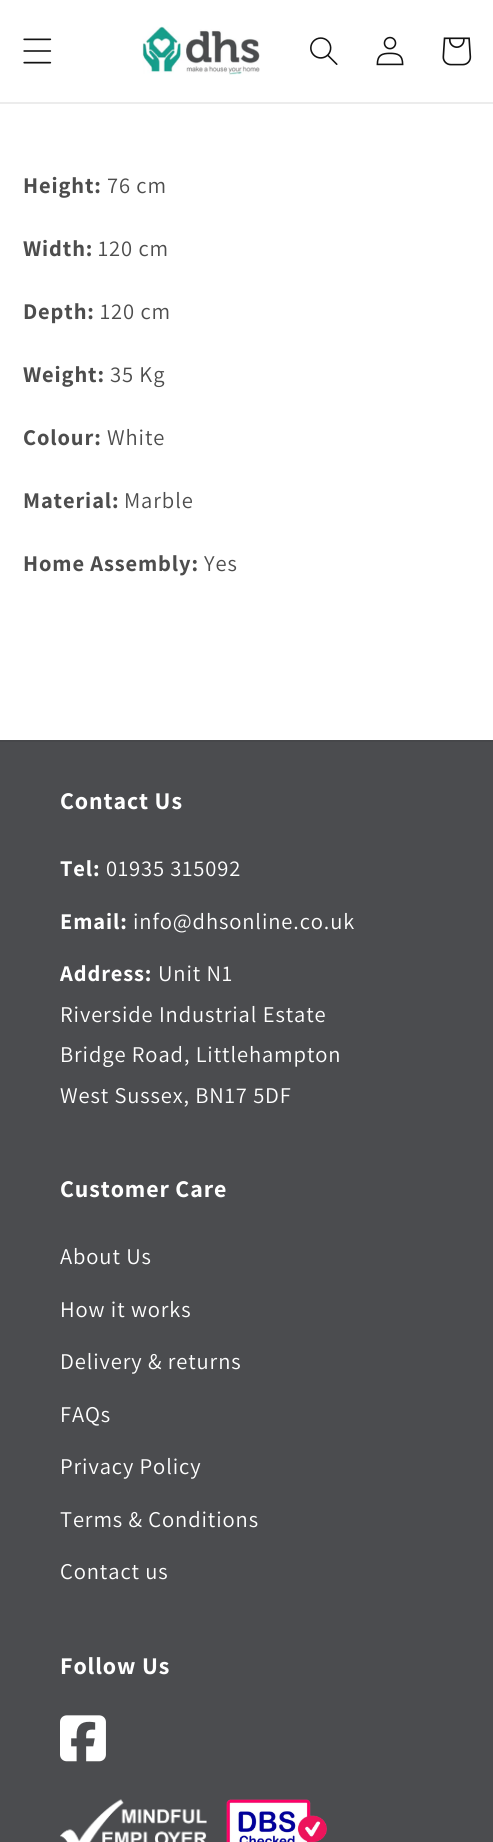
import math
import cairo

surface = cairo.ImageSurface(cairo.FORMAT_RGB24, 493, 1842)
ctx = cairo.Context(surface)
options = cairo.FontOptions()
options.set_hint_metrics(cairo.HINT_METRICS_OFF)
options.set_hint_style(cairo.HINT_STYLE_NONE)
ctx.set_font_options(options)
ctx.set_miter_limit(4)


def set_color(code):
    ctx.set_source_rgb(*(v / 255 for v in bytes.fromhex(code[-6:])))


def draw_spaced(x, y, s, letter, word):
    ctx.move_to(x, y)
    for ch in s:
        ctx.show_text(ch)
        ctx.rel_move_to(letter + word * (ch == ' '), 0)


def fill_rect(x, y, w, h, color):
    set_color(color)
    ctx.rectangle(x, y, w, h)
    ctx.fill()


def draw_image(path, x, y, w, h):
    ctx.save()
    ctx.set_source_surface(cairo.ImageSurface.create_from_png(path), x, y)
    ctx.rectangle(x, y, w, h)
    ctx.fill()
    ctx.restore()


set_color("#ffffff")
ctx.paint()
fill_rect(0, 102, 493, 2, "#ececec")
draw_image("assets/img1.png", 23, 38, 29, 26)
draw_image("assets/img2.png", 142, 26, 118, 49)
draw_image("assets/img3.png", 310, 37, 28, 28)
draw_image("assets/img4.png", 376, 36, 28, 30)
draw_image("assets/img5.png", 442, 37, 30, 29)
ctx.select_font_face("Assistant", cairo.FONT_SLANT_NORMAL, cairo.FONT_WEIGHT_BOLD)
ctx.set_font_size(22.5)
set_color("#4d4d4d")
draw_spaced(23, 193, "Height:", 0.9, 0)
ctx.select_font_face("Assistant")
draw_spaced(107, 193, "76 cm", 0.9, 0)
ctx.select_font_face("Assistant", cairo.FONT_SLANT_NORMAL, cairo.FONT_WEIGHT_BOLD)
draw_spaced(23, 256, "Width:", 0.9, 0)
ctx.select_font_face("Assistant")
draw_spaced(98, 256, "120 cm", 0.9, 0)
ctx.select_font_face("Assistant", cairo.FONT_SLANT_NORMAL, cairo.FONT_WEIGHT_BOLD)
draw_spaced(23, 319, "Depth:", 0.9, 0)
ctx.select_font_face("Assistant")
draw_spaced(100, 319, "120 cm", 0.9, 0)
ctx.select_font_face("Assistant", cairo.FONT_SLANT_NORMAL, cairo.FONT_WEIGHT_BOLD)
draw_spaced(23, 382, "Weight:", 0.9, 0)
ctx.select_font_face("Assistant")
draw_spaced(110, 382, "35 Kg", 0.9, 0)
ctx.select_font_face("Assistant", cairo.FONT_SLANT_NORMAL, cairo.FONT_WEIGHT_BOLD)
draw_spaced(23, 445, "Colour:", 0.9, 0)
ctx.select_font_face("Assistant")
draw_spaced(107, 445, "White", 0.9, 0)
ctx.select_font_face("Assistant", cairo.FONT_SLANT_NORMAL, cairo.FONT_WEIGHT_BOLD)
draw_spaced(23, 508, "Material:", 0.9, 0)
ctx.select_font_face("Assistant")
draw_spaced(124, 508, "Marble", 0.9, 0)
ctx.select_font_face("Assistant", cairo.FONT_SLANT_NORMAL, cairo.FONT_WEIGHT_BOLD)
draw_spaced(23, 571, "Home Assembly:", 0.9, 0)
ctx.select_font_face("Assistant")
draw_spaced(204, 571, "Yes", 0.9, 0)
fill_rect(0, 742, 493, 1100, "#4b4c4f")
fill_rect(0, 740, 493, 2, "#46474a")
ctx.select_font_face("Assistant", cairo.FONT_SLANT_NORMAL, cairo.FONT_WEIGHT_BOLD)
ctx.set_font_size(24)
set_color("#ffffff")
draw_spaced(60, 809, "Contact Us", 0.9, 0)
ctx.set_font_size(22.5)
draw_spaced(60, 876, "Tel:", 0.9, 0)
ctx.select_font_face("Assistant")
draw_spaced(106, 876, "01935 315092", 0.9, 0)
ctx.select_font_face("Assistant", cairo.FONT_SLANT_NORMAL, cairo.FONT_WEIGHT_BOLD)
draw_spaced(60, 929, "Email:", 0.9, 0)
ctx.select_font_face("Assistant")
draw_spaced(133, 929, "info@dhsonline.co.uk", 0.9, 0)
ctx.select_font_face("Assistant", cairo.FONT_SLANT_NORMAL, cairo.FONT_WEIGHT_BOLD)
draw_spaced(60, 981, "Address:", 0.9, 0)
ctx.select_font_face("Assistant")
draw_spaced(158, 981, "Unit N1", 0.9, 0)
draw_spaced(60, 1022, "Riverside Industrial Estate", 0.9, 0)
draw_spaced(60, 1062, "Bridge Road, Littlehampton", 0.9, 0)
draw_spaced(60, 1103, "West Sussex, BN17 5DF", 0.9, 0)
ctx.select_font_face("Assistant", cairo.FONT_SLANT_NORMAL, cairo.FONT_WEIGHT_BOLD)
ctx.set_font_size(24)
draw_spaced(60, 1197, "Customer Care", 0.9, 0)
ctx.select_font_face("Assistant")
ctx.set_font_size(22.5)
draw_spaced(60, 1264, "About Us", 0.9, 0)
draw_spaced(60, 1317, "How it works", 0.9, 0)
draw_spaced(60, 1369, "Delivery & returns", 0.9, 0)
draw_spaced(60, 1422, "FAQs", 0.9, 0)
draw_spaced(60, 1474, "Privacy Policy", 0.9, 0)
draw_spaced(60, 1527, "Terms & Conditions", 0.9, 0)
draw_spaced(60, 1579, "Contact us", 0.9, 0)
ctx.select_font_face("Assistant", cairo.FONT_SLANT_NORMAL, cairo.FONT_WEIGHT_BOLD)
ctx.set_font_size(24)
draw_spaced(60, 1674, "Follow Us", 0.9, 0)
draw_image("assets/img6.png", 60, 1715, 46, 47)
draw_image("assets/img7.png", 60, 1799, 147, 43)
draw_image("assets/img8.png", 226, 1799, 101, 43)
surface.write_to_png("output.png")
